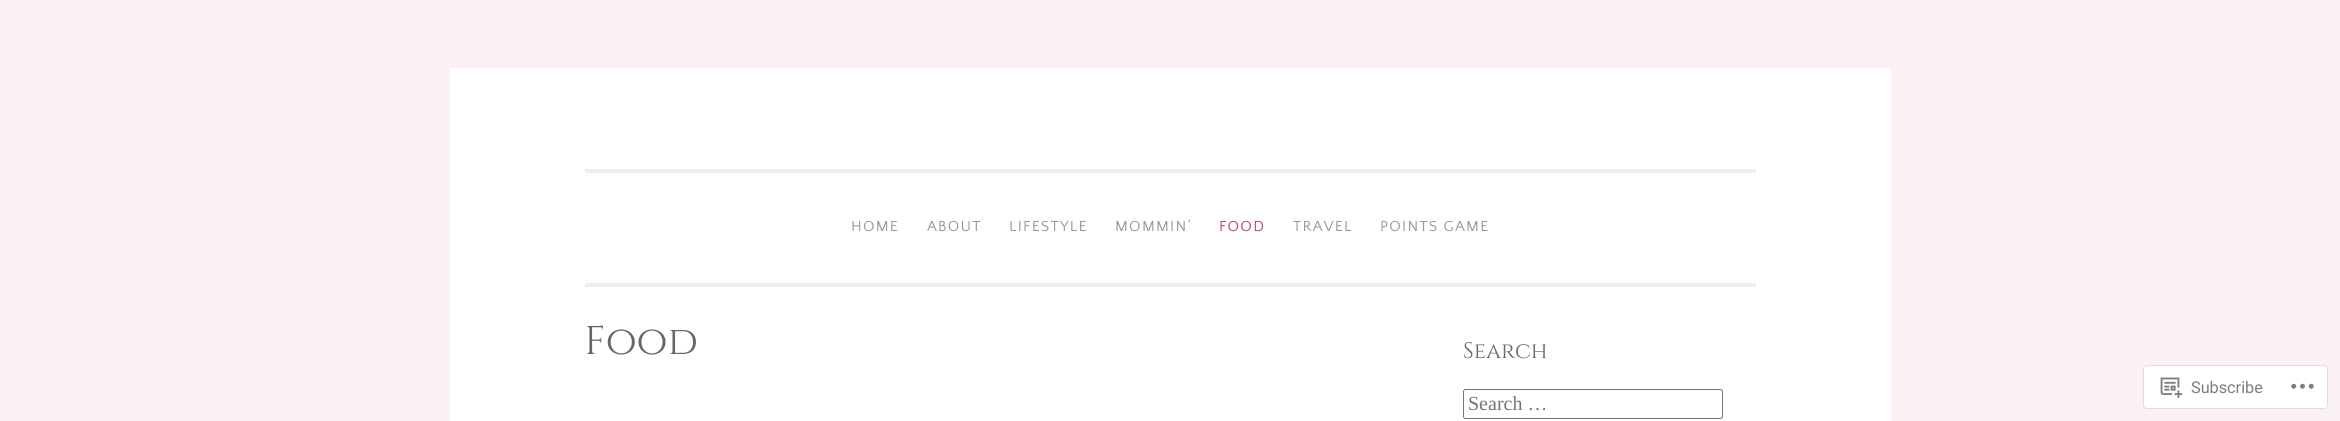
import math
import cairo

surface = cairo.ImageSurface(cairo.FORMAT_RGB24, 2340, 421)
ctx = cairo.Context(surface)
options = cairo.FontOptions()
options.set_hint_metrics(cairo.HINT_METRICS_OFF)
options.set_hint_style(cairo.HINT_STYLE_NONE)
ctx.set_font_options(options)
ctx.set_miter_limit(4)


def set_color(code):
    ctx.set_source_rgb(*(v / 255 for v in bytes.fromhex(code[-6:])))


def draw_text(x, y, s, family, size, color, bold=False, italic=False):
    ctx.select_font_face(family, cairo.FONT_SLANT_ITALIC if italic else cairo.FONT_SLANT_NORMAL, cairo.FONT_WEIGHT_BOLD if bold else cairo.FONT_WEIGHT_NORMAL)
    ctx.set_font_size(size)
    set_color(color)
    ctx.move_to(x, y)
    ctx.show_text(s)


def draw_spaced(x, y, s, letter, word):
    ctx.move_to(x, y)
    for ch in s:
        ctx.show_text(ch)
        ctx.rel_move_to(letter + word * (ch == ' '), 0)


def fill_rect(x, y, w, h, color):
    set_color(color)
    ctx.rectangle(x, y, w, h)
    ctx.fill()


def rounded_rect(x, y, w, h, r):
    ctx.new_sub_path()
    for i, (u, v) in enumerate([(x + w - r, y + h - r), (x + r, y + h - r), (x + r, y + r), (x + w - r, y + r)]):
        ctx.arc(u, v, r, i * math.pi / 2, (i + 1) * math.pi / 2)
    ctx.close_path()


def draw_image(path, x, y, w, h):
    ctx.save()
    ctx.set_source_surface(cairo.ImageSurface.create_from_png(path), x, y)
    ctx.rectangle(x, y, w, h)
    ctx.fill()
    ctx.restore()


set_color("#fcf2f5")
ctx.paint()
fill_rect(450, 68, 1441, 353, "#ffffff")
fill_rect(585, 283, 1171, 4, "#eeeeee")
fill_rect(585, 169, 1171, 4, "#eeeeee")
ctx.select_font_face("Quattrocento Sans")
ctx.set_font_size(15.25)
set_color("#999999")
draw_spaced(851, 231, "HOME", 1.25, 0)
draw_spaced(927, 231, "ABOUT", 1.25, 0)
draw_spaced(1009, 231, "LIFESTYLE", 1.25, 0)
draw_spaced(1115, 231, "MOMMIN’", 1.25, 0)
set_color("#b84672")
draw_spaced(1219, 231, "FOOD", 1.25, 0)
set_color("#999999")
draw_spaced(1293, 231, "TRAVEL", 1.25, 0)
draw_spaced(1380, 231, "POINTS GAME", 1.25, 0)
draw_text(584, 354, "Food", "Cinzel", 40, "#666666")
draw_text(1463, 358, "Search", "Cinzel", 22.5, "#666666")
rounded_rect(1463.5, 389.5, 259, 29, 2)
set_color("#767676")
ctx.set_line_width(1)
ctx.stroke()
draw_text(1468, 410, "Search …", "Liberation Serif", 20, "#757575")
set_color("#ffffff")
rounded_rect(2143.5, 365.5, 184, 43, 3.5)
ctx.fill_preserve()
set_color("#dddcde")
ctx.stroke()
draw_image("assets/img1.png", 2160, 377, 23, 21)
draw_text(2191, 393, "Subscribe", "Roboto", 16.25, "#7b7e84")
draw_image("assets/img2.png", 2291, 383, 23, 6)
surface.write_to_png("output.png")
